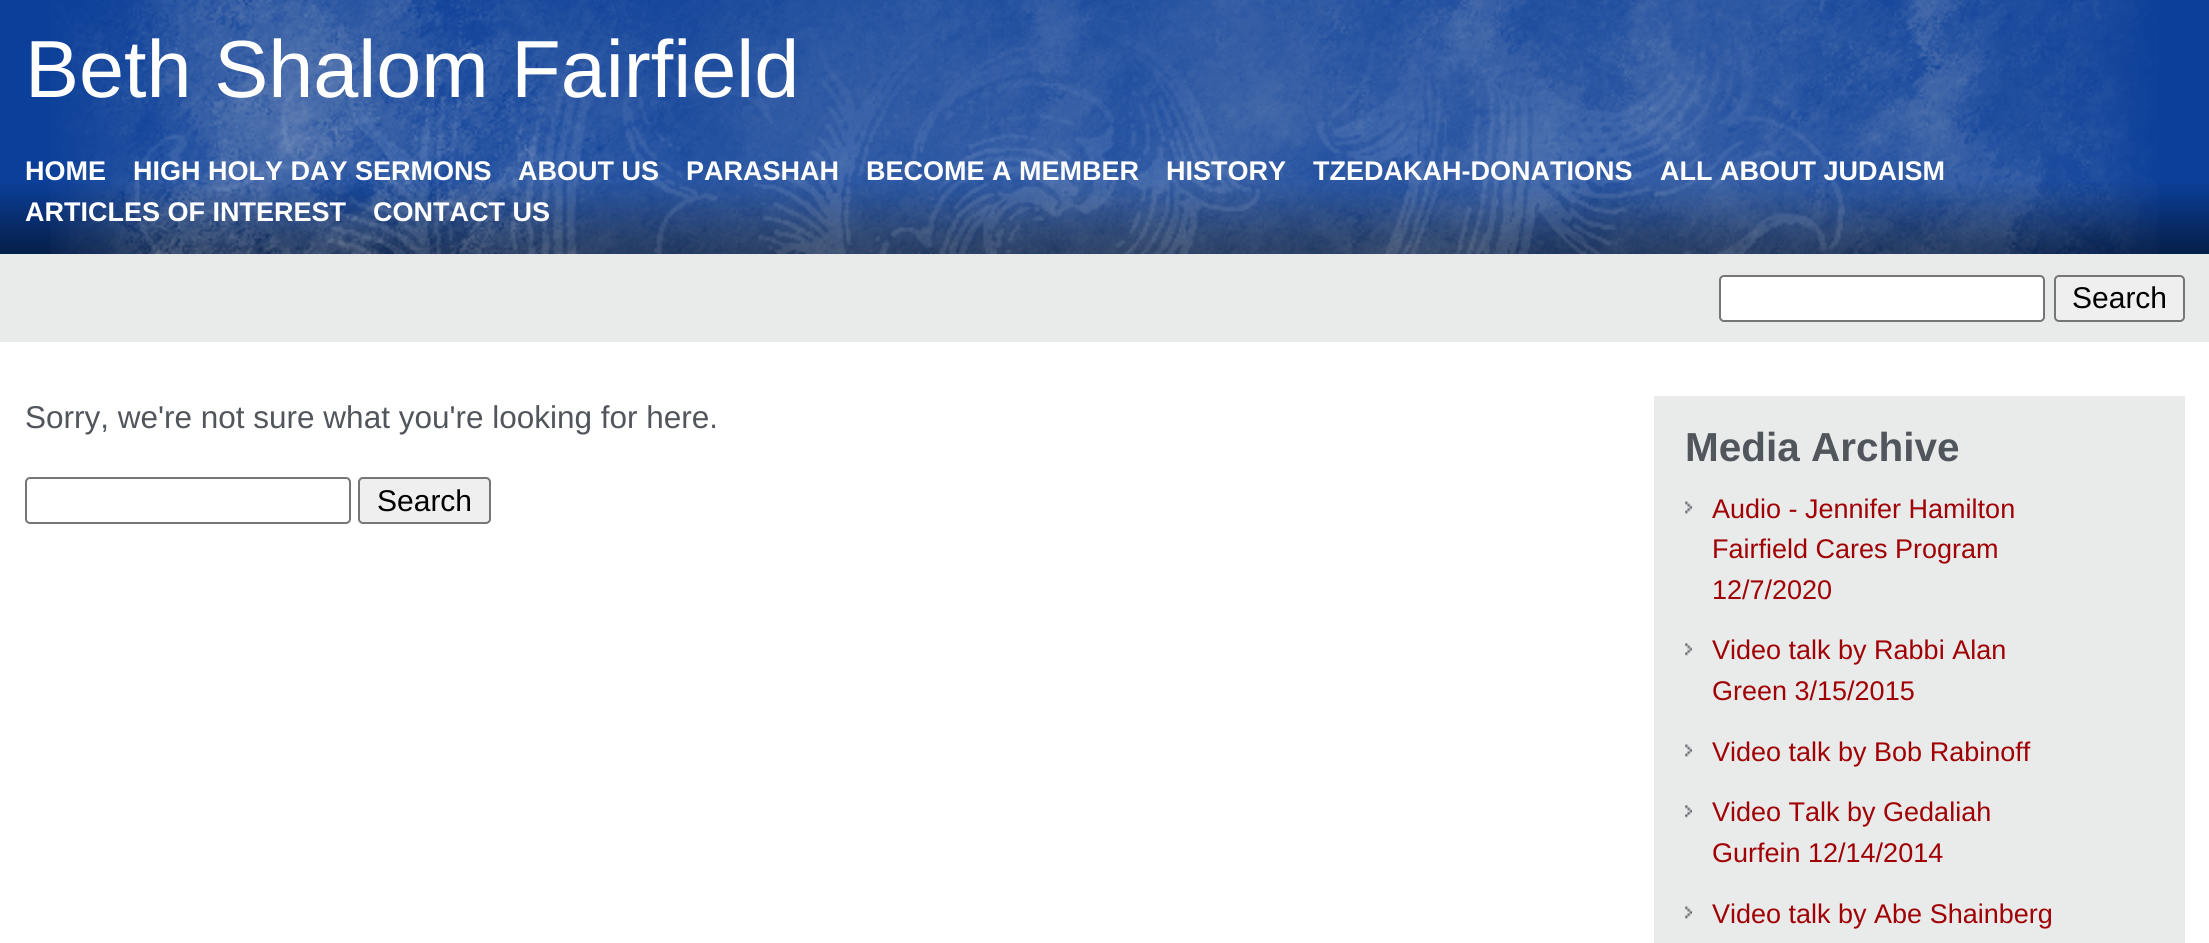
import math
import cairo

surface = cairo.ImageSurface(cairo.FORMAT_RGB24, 2209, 943)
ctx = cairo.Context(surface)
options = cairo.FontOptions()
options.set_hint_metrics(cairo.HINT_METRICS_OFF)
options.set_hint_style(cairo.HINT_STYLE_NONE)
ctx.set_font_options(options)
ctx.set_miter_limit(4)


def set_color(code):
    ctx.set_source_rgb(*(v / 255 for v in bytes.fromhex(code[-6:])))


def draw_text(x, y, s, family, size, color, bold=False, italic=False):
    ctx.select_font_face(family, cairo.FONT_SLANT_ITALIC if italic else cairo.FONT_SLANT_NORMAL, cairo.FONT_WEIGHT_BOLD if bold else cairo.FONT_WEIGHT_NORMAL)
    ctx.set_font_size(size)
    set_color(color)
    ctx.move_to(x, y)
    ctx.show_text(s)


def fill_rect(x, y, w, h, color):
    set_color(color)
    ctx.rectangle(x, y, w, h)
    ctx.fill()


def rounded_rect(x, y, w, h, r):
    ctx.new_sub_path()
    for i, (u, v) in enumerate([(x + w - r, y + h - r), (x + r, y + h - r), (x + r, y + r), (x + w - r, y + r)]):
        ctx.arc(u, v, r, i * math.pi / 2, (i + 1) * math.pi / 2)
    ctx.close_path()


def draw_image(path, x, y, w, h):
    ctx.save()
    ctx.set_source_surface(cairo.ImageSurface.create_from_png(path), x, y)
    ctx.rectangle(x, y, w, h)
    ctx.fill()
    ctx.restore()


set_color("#ffffff")
ctx.paint()
fill_rect(0, 0, 2209, 254, "#0b3f99")
draw_image("assets/img1.png", 0, 183, 2209, 71)
draw_image("assets/img2.png", 50, 0, 2109, 254)
draw_text(25, 97, "Beth Shalom Fairfield", "Liberation Sans", 81, "#ffffff")
draw_text(25, 180, "HOME", "Liberation Sans", 27, "#ffffff", bold=True)
draw_text(133, 180, "HIGH HOLY DAY SERMONS", "Liberation Sans", 27, "#ffffff", bold=True)
draw_text(518, 180, "ABOUT US", "Liberation Sans", 27, "#ffffff", bold=True)
draw_text(686, 180, "PARASHAH", "Liberation Sans", 27, "#ffffff", bold=True)
draw_text(866, 180, "BECOME A MEMBER", "Liberation Sans", 27, "#ffffff", bold=True)
draw_text(1166, 180, "HISTORY", "Liberation Sans", 27, "#ffffff", bold=True)
draw_text(1313, 180, "TZEDAKAH-DONATIONS", "Liberation Sans", 27, "#ffffff", bold=True)
draw_text(1660, 180, "ALL ABOUT JUDAISM", "Liberation Sans", 27, "#ffffff", bold=True)
draw_text(25, 221, "ARTICLES OF INTEREST", "Liberation Sans", 27, "#ffffff", bold=True)
draw_text(373, 221, "CONTACT US", "Liberation Sans", 27, "#ffffff", bold=True)
fill_rect(0, 254, 2209, 88, "#e9eaea")
set_color("#ffffff")
rounded_rect(1720, 276, 324, 45, 4)
ctx.fill_preserve()
set_color("#767676")
ctx.stroke()
set_color("#efefef")
rounded_rect(2055, 276, 129, 45, 4)
ctx.fill_preserve()
set_color("#767676")
ctx.stroke()
draw_text(2072, 308, "Search", "Liberation Sans", 30, "#000000")
draw_text(25, 428, "Sorry, we're not sure what you're looking for here.", "Liberation Sans", 31.5, "#51555c")
rounded_rect(26, 478, 324, 45, 4)
set_color("#767676")
ctx.stroke()
set_color("#efefef")
rounded_rect(359, 478, 131, 45, 4)
ctx.fill_preserve()
set_color("#767676")
ctx.stroke()
draw_text(377, 511, "Search", "Liberation Sans", 30, "#000000")
fill_rect(1654, 396, 531, 547, "#e9eaea")
draw_text(1685, 461, "Media Archive", "Liberation Sans", 40.5, "#51555c", bold=True)
draw_image("assets/img3.png", 1685, 501, 7, 13)
draw_text(1712, 518, "Audio - Jennifer Hamilton", "Liberation Sans", 27, "#a00004")
draw_text(1712, 558, "Fairfield Cares Program", "Liberation Sans", 27, "#a00004")
draw_text(1712, 599, "12/7/2020", "Liberation Sans", 27, "#a00004")
draw_image("assets/img4.png", 1685, 643, 7, 13)
draw_text(1712, 659, "Video talk by Rabbi Alan", "Liberation Sans", 27, "#a00004")
draw_text(1712, 700, "Green 3/15/2015", "Liberation Sans", 27, "#a00004")
draw_image("assets/img3.png", 1685, 744, 7, 13)
draw_text(1712, 761, "Video talk by Bob Rabinoff", "Liberation Sans", 27, "#a00004")
draw_image("assets/img4.png", 1685, 805, 7, 13)
draw_text(1712, 821, "Video Talk by Gedaliah", "Liberation Sans", 27, "#a00004")
draw_text(1712, 862, "Gurfein 12/14/2014", "Liberation Sans", 27, "#a00004")
draw_image("assets/img3.png", 1685, 906, 7, 13)
draw_text(1712, 923, "Video talk by Abe Shainberg", "Liberation Sans", 27, "#a00004")
surface.write_to_png("output.png")
